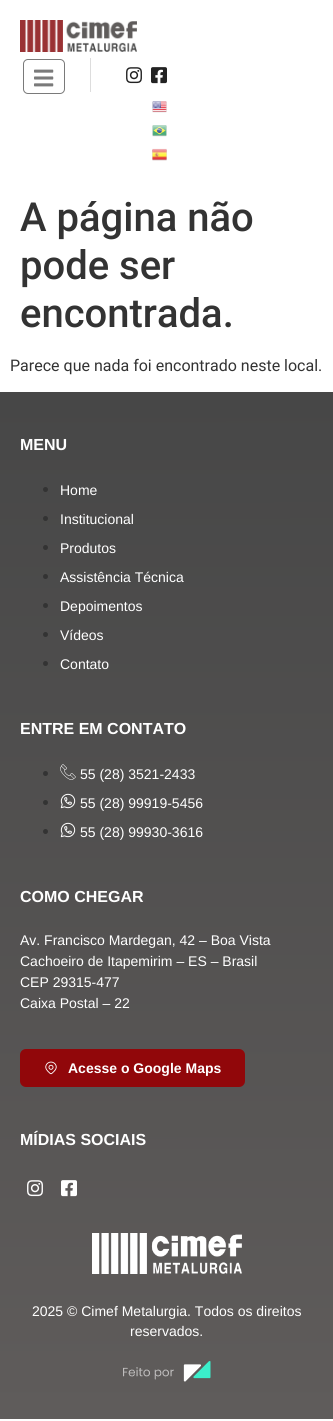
import math
import cairo

surface = cairo.ImageSurface(cairo.FORMAT_RGB24, 333, 1421)
ctx = cairo.Context(surface)
options = cairo.FontOptions()
options.set_hint_metrics(cairo.HINT_METRICS_OFF)
options.set_hint_style(cairo.HINT_STYLE_NONE)
ctx.set_font_options(options)
ctx.set_miter_limit(4)


def set_color(code):
    ctx.set_source_rgb(*(v / 255 for v in bytes.fromhex(code[-6:])))


def draw_text(x, y, s, family, size, color, bold=False, italic=False):
    ctx.select_font_face(family, cairo.FONT_SLANT_ITALIC if italic else cairo.FONT_SLANT_NORMAL, cairo.FONT_WEIGHT_BOLD if bold else cairo.FONT_WEIGHT_NORMAL)
    ctx.set_font_size(size)
    set_color(color)
    ctx.move_to(x, y)
    ctx.show_text(s)


def fill_rect(x, y, w, h, color):
    set_color(color)
    ctx.rectangle(x, y, w, h)
    ctx.fill()


def rounded_rect(x, y, w, h, r):
    ctx.new_sub_path()
    for i, (u, v) in enumerate([(x + w - r, y + h - r), (x + r, y + h - r), (x + r, y + r), (x + w - r, y + r)]):
        ctx.arc(u, v, r, i * math.pi / 2, (i + 1) * math.pi / 2)
    ctx.close_path()


def draw_image(path, x, y, w, h):
    ctx.save()
    ctx.set_source_surface(cairo.ImageSurface.create_from_png(path), x, y)
    ctx.rectangle(x, y, w, h)
    ctx.fill()
    ctx.restore()


set_color("#ffffff")
ctx.paint()
draw_image("assets/img1.png", 20, 20, 117, 32)
rounded_rect(23.5, 59.5, 41, 34, 4.5)
set_color("#7a7a7a")
ctx.set_line_width(1)
ctx.stroke()
draw_image("assets/img2.png", 34, 69, 20, 18)
fill_rect(90, 58, 1, 34, "#dddddd")
draw_image("assets/img3.png", 126, 67, 16, 17)
draw_image("assets/img4.png", 151, 67, 16, 17)
draw_image("assets/img5.png", 152, 101, 15, 12)
draw_image("assets/img6.png", 152, 125, 15, 12)
draw_image("assets/img7.png", 152, 148, 15, 13)
draw_text(20, 231, "A página não", "Roboto Medium", 40, "#333333")
draw_text(20, 279, "pode ser", "Roboto Medium", 40, "#333333")
draw_text(20, 327, "encontrada.", "Roboto Medium", 40, "#333333")
draw_text(10, 371, "Parece que nada foi encontrado neste local.", "Roboto", 16, "#333333")
gradient = cairo.LinearGradient(166, 392, 167, 1419)
gradient.add_color_stop_rgba(0, 0.278, 0.278, 0.278, 1)
gradient.add_color_stop_rgba(1, 0.373, 0.361, 0.357, 1)
ctx.set_source(gradient)
ctx.rectangle(0, 392, 333, 1027)
ctx.fill()
draw_text(20, 450, "MENU", "Liberation Sans", 16, "#ffffff", bold=True)
set_color("#333333")
ctx.new_path()
ctx.arc(45.5, 489.5, 2.5, 0, 2 * math.pi)
ctx.fill()
draw_text(60, 495, "Home", "Liberation Sans", 14, "#ffffff")
set_color("#333333")
ctx.new_path()
ctx.arc(45.5, 518.5, 2.5, 0, 2 * math.pi)
ctx.fill()
draw_text(60, 524, "Institucional", "Liberation Sans", 14, "#ffffff")
set_color("#333333")
ctx.new_path()
ctx.arc(45.5, 547.5, 2.5, 0, 2 * math.pi)
ctx.fill()
draw_text(60, 553, "Produtos", "Liberation Sans", 14, "#ffffff")
set_color("#333333")
ctx.new_path()
ctx.arc(45.5, 576.5, 2.5, 0, 2 * math.pi)
ctx.fill()
draw_text(60, 582, "Assistência Técnica", "Liberation Sans", 14, "#ffffff")
set_color("#333333")
ctx.new_path()
ctx.arc(45.5, 605.5, 2.5, 0, 2 * math.pi)
ctx.fill()
draw_text(60, 611, "Depoimentos", "Liberation Sans", 14, "#ffffff")
set_color("#333333")
ctx.new_path()
ctx.arc(45.5, 634.5, 2.5, 0, 2 * math.pi)
ctx.fill()
draw_text(60, 640, "Vídeos", "Liberation Sans", 14, "#ffffff")
set_color("#333333")
ctx.new_path()
ctx.arc(45.5, 663.5, 2.5, 0, 2 * math.pi)
ctx.fill()
draw_text(60, 669, "Contato", "Liberation Sans", 14, "#ffffff")
draw_text(20, 734, "ENTRE EM CONTATO", "Liberation Sans", 16, "#ffffff", bold=True)
set_color("#333333")
ctx.new_path()
ctx.arc(45.5, 773.5, 2.5, 0, 2 * math.pi)
ctx.fill()
draw_image("assets/img8.png", 60, 764, 16, 16)
draw_text(80, 779, "55 (28) 3521-2433", "Liberation Sans", 14, "#ffffff")
set_color("#333333")
ctx.new_path()
ctx.arc(45.5, 802.5, 2.5, 0, 2 * math.pi)
ctx.fill()
draw_image("assets/img9.png", 60, 793, 16, 16)
draw_text(80, 808, "55 (28) 99919-5456", "Liberation Sans", 14, "#ffffff")
set_color("#333333")
ctx.new_path()
ctx.arc(45.5, 831.5, 2.5, 0, 2 * math.pi)
ctx.fill()
draw_image("assets/img10.png", 60, 822, 16, 16)
draw_text(80, 837, "55 (28) 99930-3616", "Liberation Sans", 14, "#ffffff")
draw_text(20, 902, "COMO CHEGAR", "Liberation Sans", 16, "#ffffff", bold=True)
draw_text(20, 945, "Av. Francisco Mardegan, 42 – Boa Vista", "Liberation Sans", 14, "#ffffff")
draw_text(20, 966, "Cachoeiro de Itapemirim – ES – Brasil", "Liberation Sans", 14, "#ffffff")
draw_text(20, 987, "CEP 29315-477", "Liberation Sans", 14, "#ffffff")
draw_text(20, 1008, "Caixa Postal – 22", "Liberation Sans", 14, "#ffffff")
set_color("#91070a")
rounded_rect(20, 1049, 225, 38, 6)
ctx.fill()
draw_image("assets/img11.png", 45, 1061, 12, 14)
draw_text(68, 1073, "Acesse o Google Maps", "Liberation Sans", 14, "#ffffff", bold=True)
draw_text(20, 1145, "MÍDIAS SOCIAIS", "Liberation Sans", 16, "#ffffff", bold=True)
draw_image("assets/img12.png", 27, 1180, 16, 17)
draw_image("assets/img13.png", 61, 1180, 16, 17)
draw_image("assets/img14.png", 92, 1233, 150, 41)
draw_text(32, 1316, "2025 © Cimef Metalurgia. Todos os direitos", "Liberation Sans", 14, "#ffffff")
draw_text(130, 1336, "reservados.", "Liberation Sans", 14, "#ffffff")
draw_image("assets/img15.png", 123, 1361, 88, 21)
surface.write_to_png("output.png")
